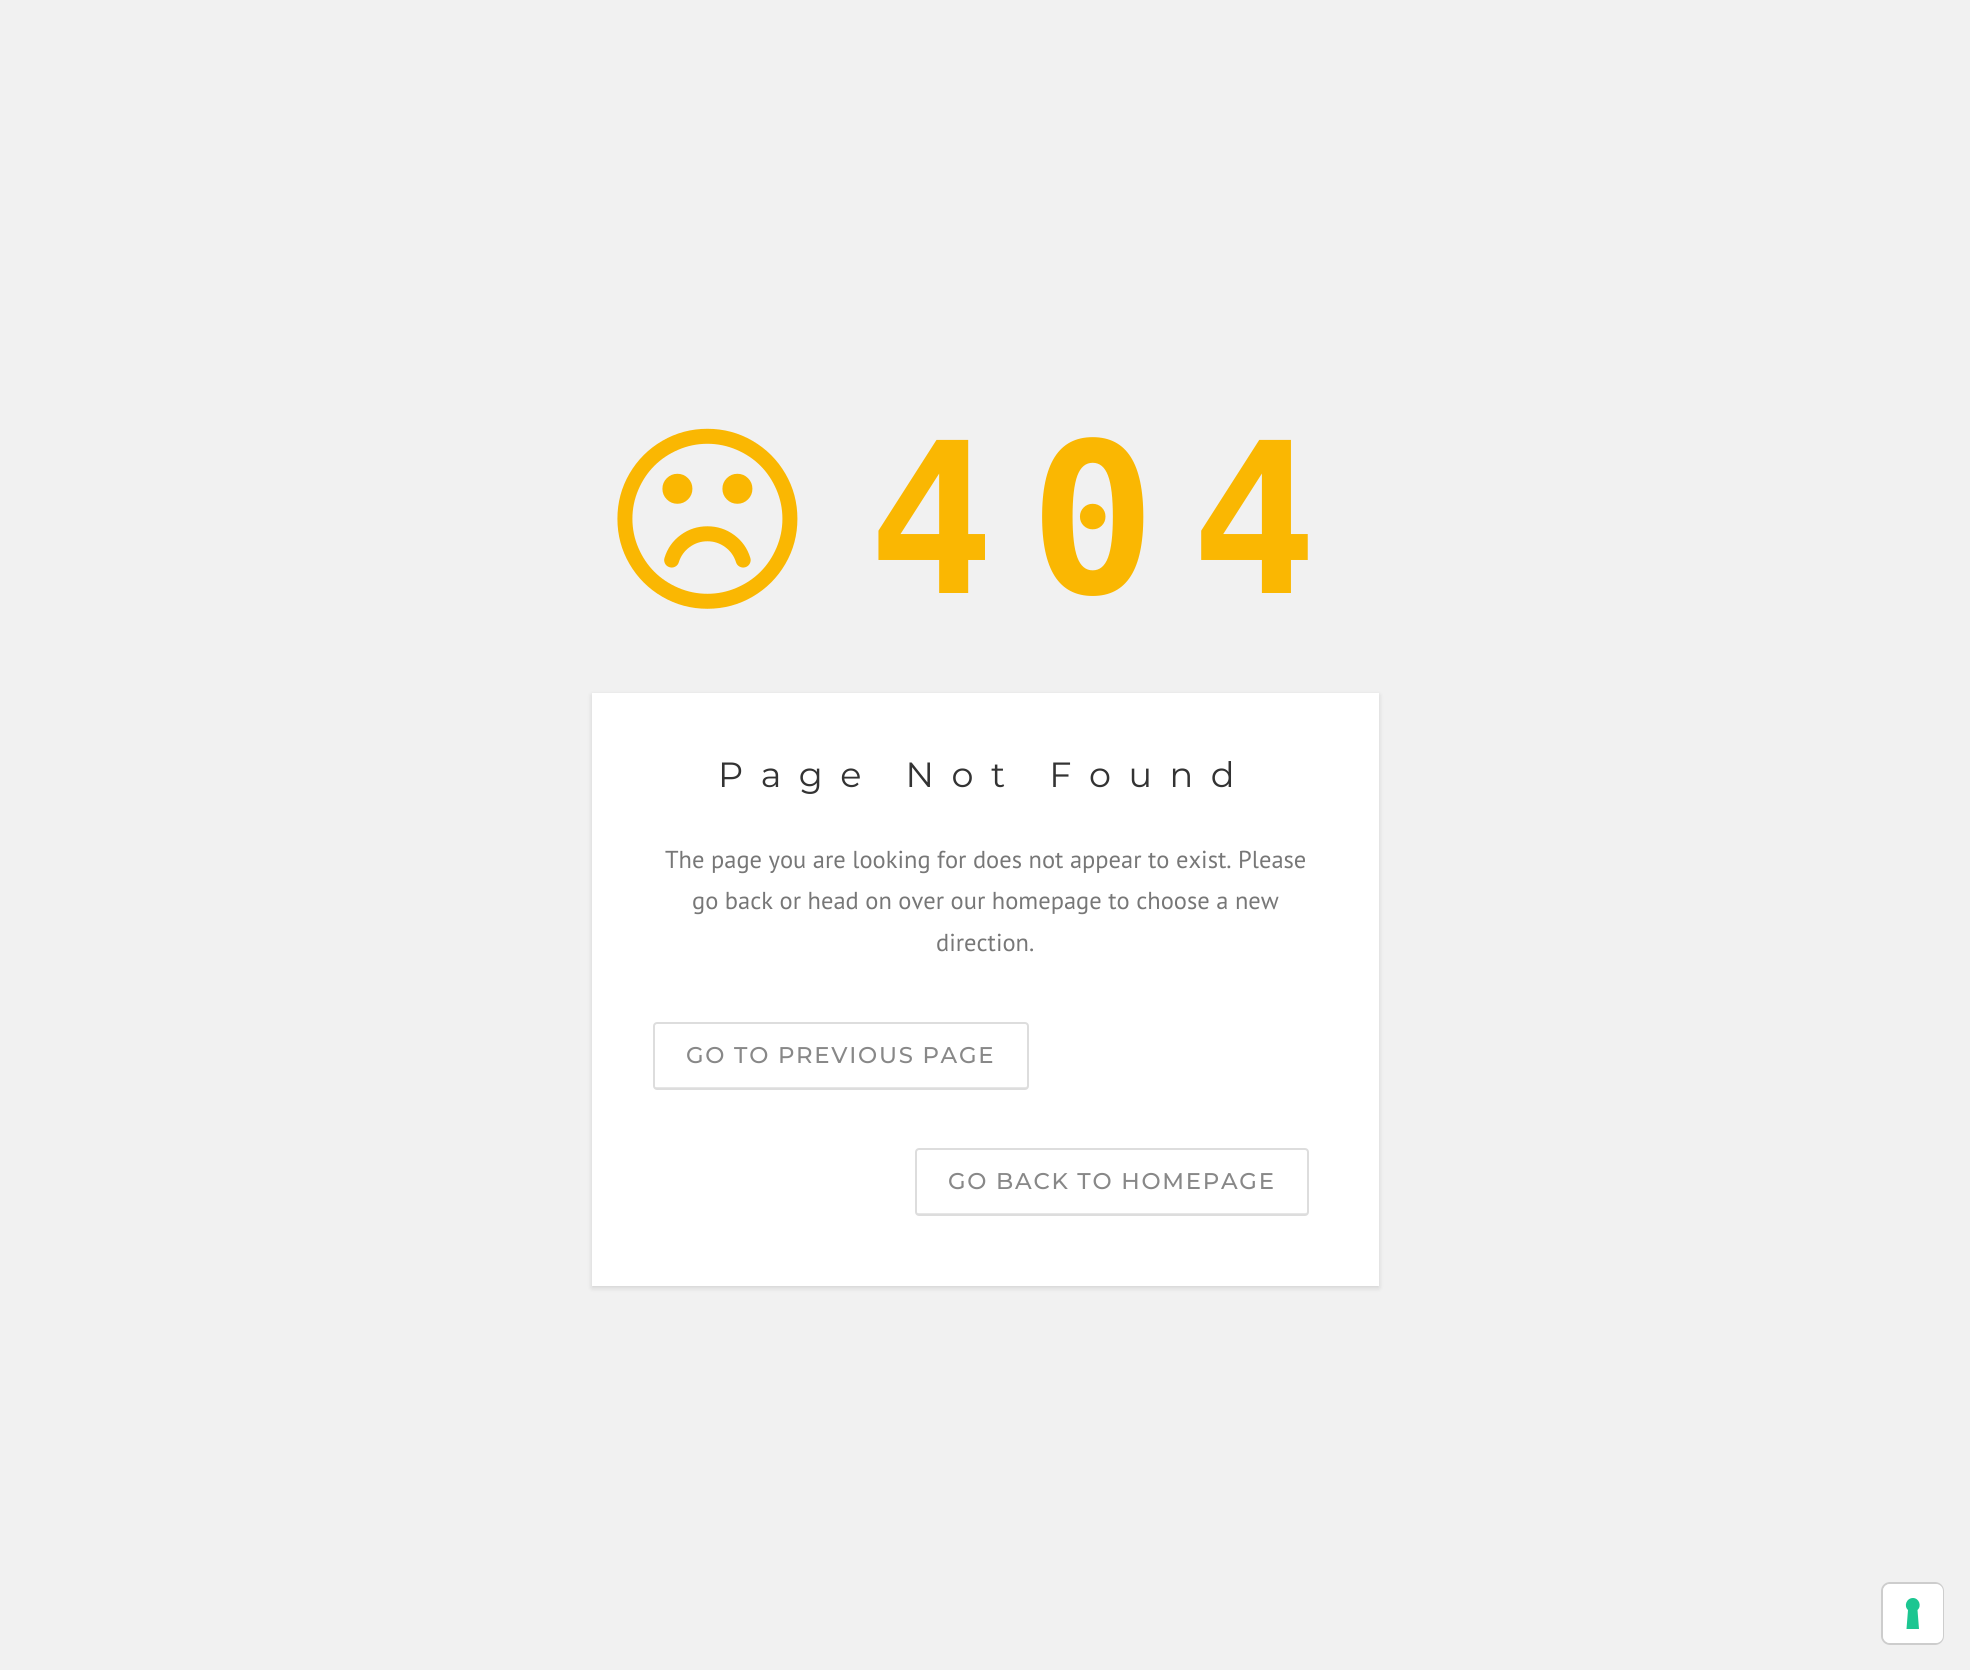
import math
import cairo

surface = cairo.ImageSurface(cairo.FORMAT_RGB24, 1970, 1670)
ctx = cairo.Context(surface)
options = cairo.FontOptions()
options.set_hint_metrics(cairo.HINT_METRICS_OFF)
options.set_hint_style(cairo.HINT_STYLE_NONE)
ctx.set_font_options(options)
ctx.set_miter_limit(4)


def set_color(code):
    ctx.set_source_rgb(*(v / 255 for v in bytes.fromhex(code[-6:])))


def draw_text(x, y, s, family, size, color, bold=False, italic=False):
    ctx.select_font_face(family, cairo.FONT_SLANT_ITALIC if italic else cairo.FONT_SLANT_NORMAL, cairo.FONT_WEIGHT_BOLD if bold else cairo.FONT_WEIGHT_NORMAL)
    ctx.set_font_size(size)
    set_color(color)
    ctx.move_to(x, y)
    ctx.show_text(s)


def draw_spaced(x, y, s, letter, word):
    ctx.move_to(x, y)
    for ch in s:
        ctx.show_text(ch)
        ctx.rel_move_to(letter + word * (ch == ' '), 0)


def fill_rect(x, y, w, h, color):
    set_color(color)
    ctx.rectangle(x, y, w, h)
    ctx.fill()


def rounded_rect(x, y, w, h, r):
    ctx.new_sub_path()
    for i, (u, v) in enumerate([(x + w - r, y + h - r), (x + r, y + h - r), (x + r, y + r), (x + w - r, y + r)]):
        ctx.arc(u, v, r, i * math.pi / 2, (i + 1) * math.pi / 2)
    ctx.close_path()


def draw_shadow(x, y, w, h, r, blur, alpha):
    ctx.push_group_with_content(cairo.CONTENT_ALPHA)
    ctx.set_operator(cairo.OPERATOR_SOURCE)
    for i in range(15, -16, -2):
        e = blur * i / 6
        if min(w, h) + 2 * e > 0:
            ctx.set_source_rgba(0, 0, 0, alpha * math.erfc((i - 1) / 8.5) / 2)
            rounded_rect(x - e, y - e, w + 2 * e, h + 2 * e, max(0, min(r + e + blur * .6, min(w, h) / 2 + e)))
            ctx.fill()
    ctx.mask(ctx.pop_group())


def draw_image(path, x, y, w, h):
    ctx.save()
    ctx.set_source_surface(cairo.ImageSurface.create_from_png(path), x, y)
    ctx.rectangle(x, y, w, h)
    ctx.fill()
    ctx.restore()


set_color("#f1f1f1")
ctx.paint()
draw_image("assets/img1.png", 617, 428, 181, 181)
ctx.select_font_face("DejaVu Sans Mono", cairo.FONT_SLANT_NORMAL, cairo.FONT_WEIGHT_BOLD)
ctx.set_font_size(210)
set_color("#fab702")
draw_spaced(868, 593, "404", 35, 0)
set_color("#000000")
draw_shadow(592, 695, 787, 593, 0, 2.5, 0.13)
fill_rect(592, 693, 787, 593, "#ffffff")
ctx.select_font_face("Montserrat")
ctx.set_font_size(35)
set_color("#333333")
draw_spaced(718, 787, "Page Not Found", 17.5, 0)
draw_text(665, 868, "The page you are looking for does not appear to exist. Please", "PT Sans", 24.5, "#777777")
draw_text(692, 909, "go back or head on over our homepage to choose a new", "PT Sans", 24.5, "#777777")
draw_text(936, 951, "direction.", "PT Sans", 24.5, "#777777")
set_color("#e6e6e6")
ctx.new_path()
ctx.move_to(655, 1087)
ctx.curve_to(655, 1088, 656, 1089, 657, 1089)
ctx.line_to(1025, 1089)
ctx.curve_to(1027, 1089, 1027, 1087, 1027, 1086)
ctx.curve_to(1027, 1087, 1026, 1087, 1025, 1087)
ctx.close_path()
ctx.fill()
rounded_rect(654, 1023, 374, 66, 3)
set_color("#dddddd")
ctx.stroke()
ctx.select_font_face("Montserrat Medium")
ctx.set_font_size(22.75)
set_color("#888888")
draw_spaced(686, 1063, "GO TO PREVIOUS PAGE", 1.75, 0)
set_color("#e6e6e6")
ctx.new_path()
ctx.move_to(917, 1212)
ctx.line_to(917, 1214)
ctx.line_to(919, 1215)
ctx.line_to(1306, 1215)
ctx.curve_to(1307, 1214, 1307, 1213, 1307, 1212)
ctx.curve_to(1307, 1213, 1306, 1213, 1305, 1213)
ctx.line_to(918, 1213)
ctx.curve_to(917, 1213, 917, 1213, 917, 1212)
ctx.close_path()
ctx.fill()
rounded_rect(916, 1149, 392, 66, 3)
set_color("#dddddd")
ctx.stroke()
set_color("#888888")
draw_spaced(948, 1189, "GO BACK TO HOMEPAGE", 1.75, 0)
rounded_rect(1882, 1583, 61, 61, 8)
set_color("#cdcdcd")
ctx.stroke()
set_color("#ffffff")
rounded_rect(1883, 1584, 60, 59, 7)
ctx.fill()
set_color("#1cc691")
ctx.set_fill_rule(cairo.FILL_RULE_EVEN_ODD)
ctx.new_path()
ctx.move_to(1913, 1598)
ctx.curve_to(1919, 1598, 1922, 1606, 1917.5, 1610)
ctx.line_to(1919, 1629)
ctx.line_to(1906.5, 1629)
ctx.line_to(1908, 1610)
ctx.curve_to(1903.5, 1606, 1906.5, 1598, 1913, 1598)
ctx.close_path()
ctx.fill()
surface.write_to_png("output.png")
